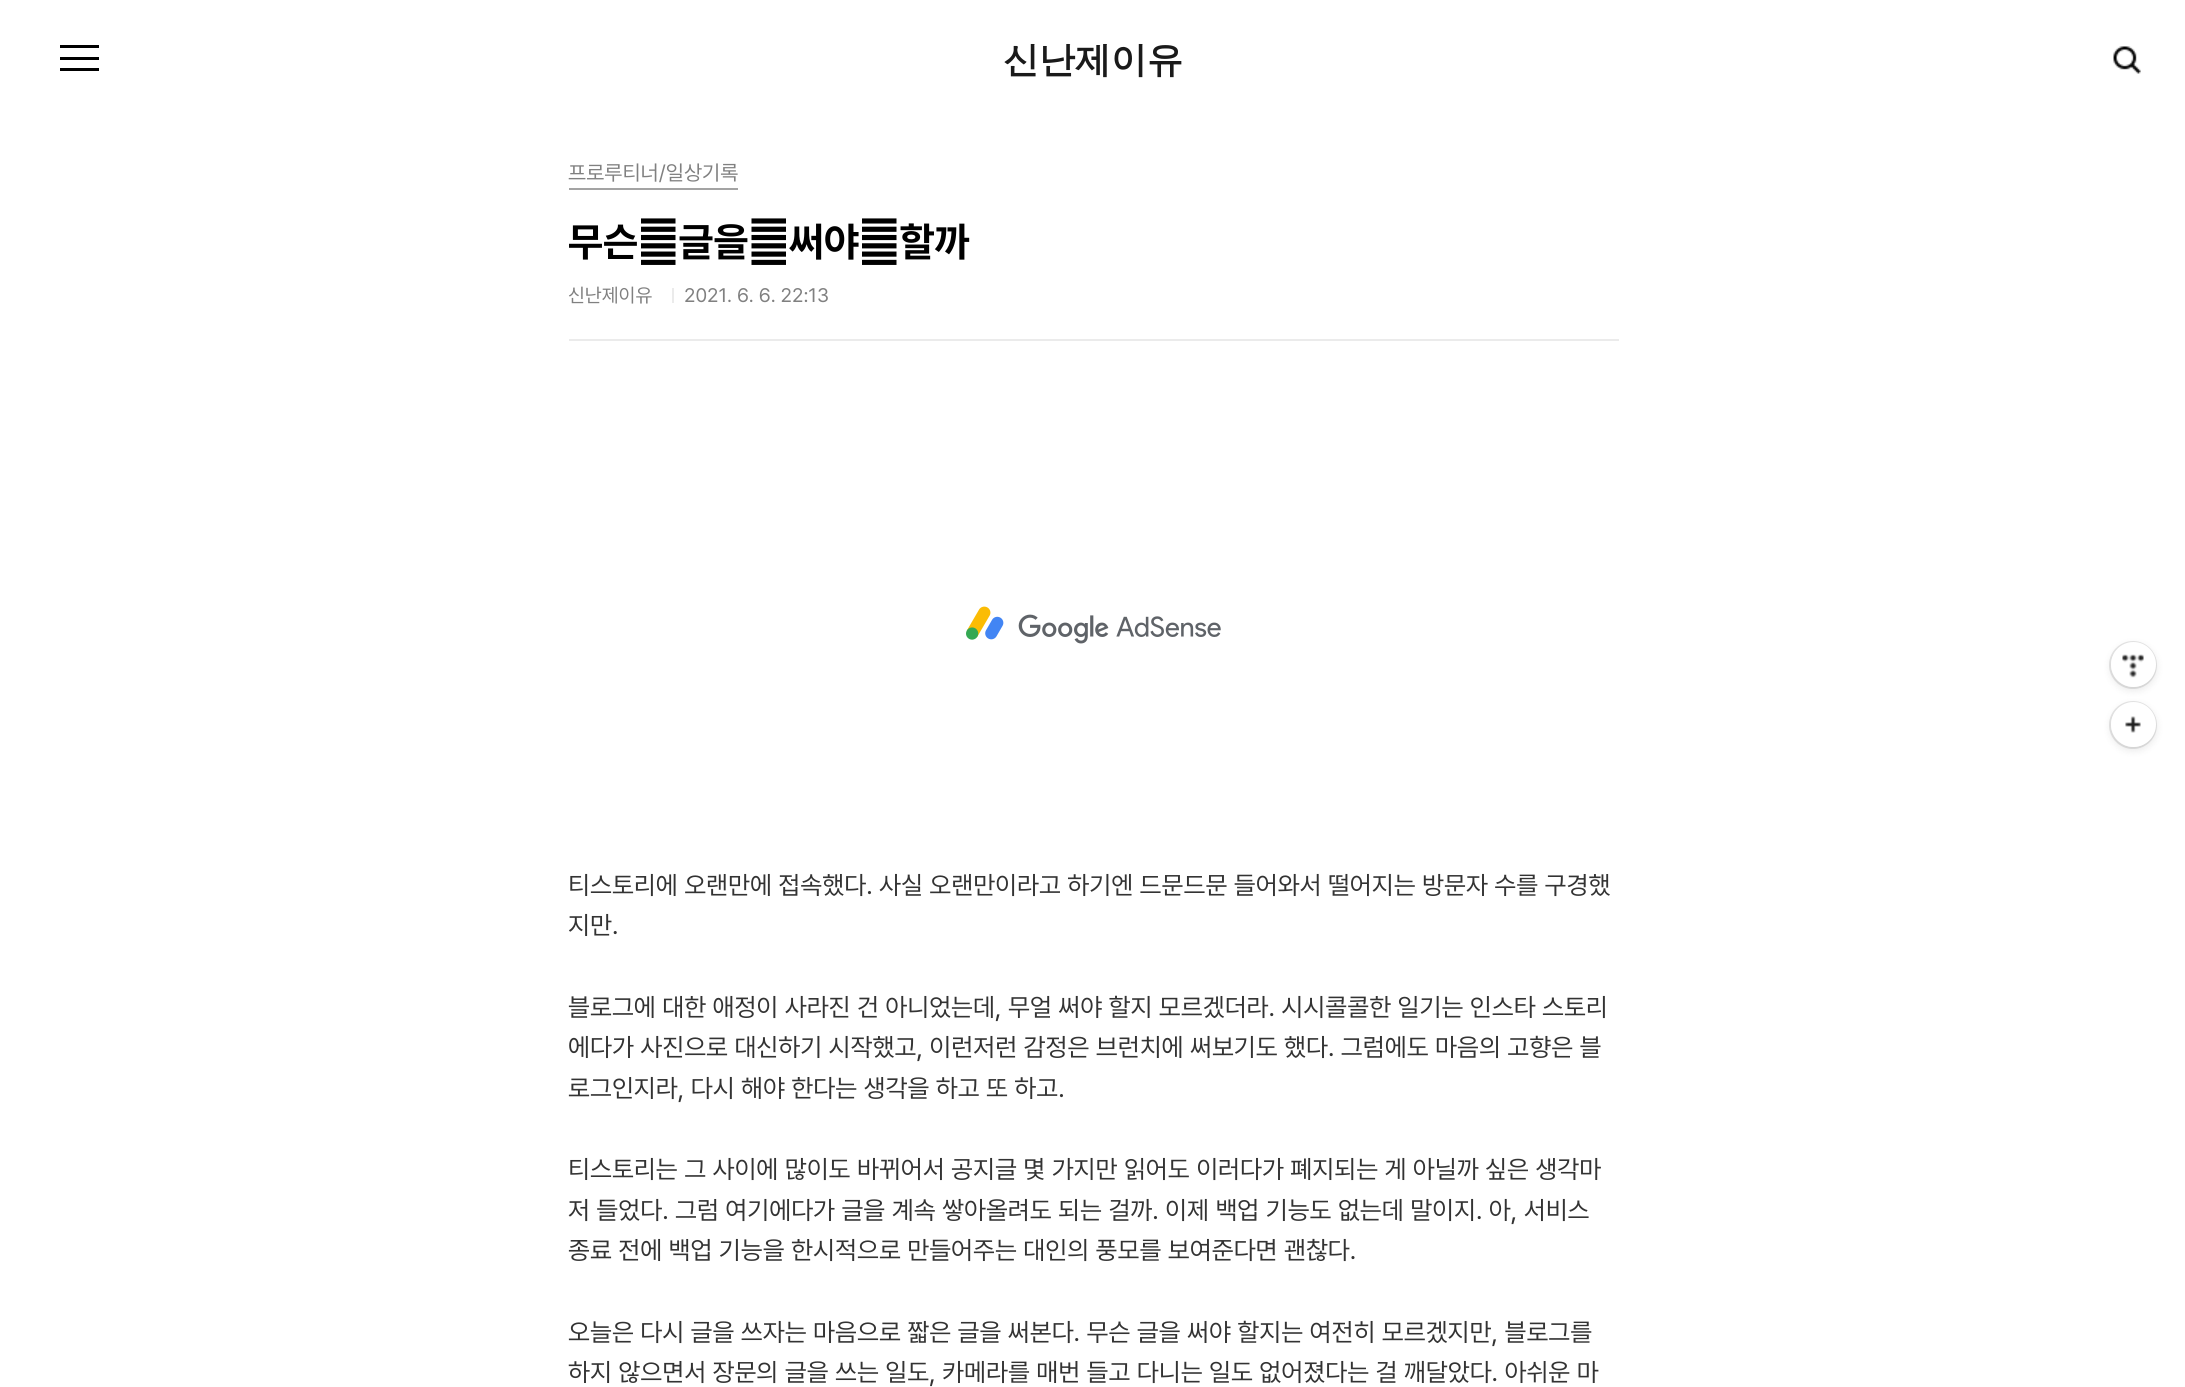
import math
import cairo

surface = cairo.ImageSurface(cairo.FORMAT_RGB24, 2185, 1387)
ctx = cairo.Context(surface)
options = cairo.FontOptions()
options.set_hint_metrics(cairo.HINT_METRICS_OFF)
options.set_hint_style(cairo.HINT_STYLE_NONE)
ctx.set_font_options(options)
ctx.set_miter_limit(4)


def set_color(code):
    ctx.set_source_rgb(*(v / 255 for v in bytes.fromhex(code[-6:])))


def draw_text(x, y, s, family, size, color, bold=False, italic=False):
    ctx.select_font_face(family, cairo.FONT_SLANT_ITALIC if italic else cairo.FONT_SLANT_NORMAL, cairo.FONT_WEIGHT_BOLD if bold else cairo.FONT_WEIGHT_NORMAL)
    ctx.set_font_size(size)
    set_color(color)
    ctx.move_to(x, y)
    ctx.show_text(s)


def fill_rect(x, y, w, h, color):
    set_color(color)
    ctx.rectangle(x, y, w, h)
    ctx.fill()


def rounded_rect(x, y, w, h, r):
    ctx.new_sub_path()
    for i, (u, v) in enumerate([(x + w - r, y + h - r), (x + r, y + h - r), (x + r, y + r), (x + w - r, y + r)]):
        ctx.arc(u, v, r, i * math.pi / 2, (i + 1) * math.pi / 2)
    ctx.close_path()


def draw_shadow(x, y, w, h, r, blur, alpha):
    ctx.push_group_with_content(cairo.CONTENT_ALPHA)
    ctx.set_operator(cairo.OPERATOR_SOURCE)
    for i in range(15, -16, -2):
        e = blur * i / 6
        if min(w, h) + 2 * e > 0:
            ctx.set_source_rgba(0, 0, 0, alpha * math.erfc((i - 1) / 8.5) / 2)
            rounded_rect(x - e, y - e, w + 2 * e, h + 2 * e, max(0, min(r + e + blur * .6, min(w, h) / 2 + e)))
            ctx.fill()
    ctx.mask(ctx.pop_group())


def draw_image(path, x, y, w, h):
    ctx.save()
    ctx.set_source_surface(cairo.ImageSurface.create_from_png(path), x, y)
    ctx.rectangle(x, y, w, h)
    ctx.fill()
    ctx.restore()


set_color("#ffffff")
ctx.paint()
fill_rect(60, 45, 39, 3, "#000000")
fill_rect(60, 57, 39, 3, "#000000")
fill_rect(60, 68, 39, 3, "#000000")
draw_text(1003, 72, "신난제이유", "WenQuanYi Zen Hei", 36, "#1a1a1a", bold=True)
draw_image("assets/img1.png", 2113, 46, 28, 28)
fill_rect(569, 339, 1050, 2, "#ebebeb")
fill_rect(569, 188, 169, 2, "#a3a3a3")
draw_text(568, 180, "프로루티너/일상기록", "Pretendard", 21, "#808080")
draw_text(568, 256, "무슨 글을 써야 할까", "Pretendard", 40.5, "#000000", bold=True)
draw_text(568, 302, "신난제이유", "Pretendard", 19.5, "#808080")
fill_rect(672, 288, 2, 15, "#ebebeb")
draw_text(684, 302, "2021. 6. 6. 22:13", "Pretendard", 19.5, "#808080")
draw_image("assets/img2.png", 966, 606, 255, 38)
draw_text(568, 894, "티스토리에 오랜만에 접속했다. 사실 오랜만이라고 하기엔 드문드문 들어와서 떨어지는 방문자 수를 구경했", "Pretendard", 25.4, "#333333")
draw_text(568, 934, "지만.", "Pretendard", 25.4, "#333333")
draw_text(568, 1016, "블로그에 대한 애정이 사라진 건 아니었는데, 무얼 써야 할지 모르겠더라. 시시콜콜한 일기는 인스타 스토리", "Pretendard", 25.4, "#333333")
draw_text(568, 1056, "에다가 사진으로 대신하기 시작했고, 이런저런 감정은 브런치에 써보기도 했다. 그럼에도 마음의 고향은 블", "Pretendard", 25.4, "#333333")
draw_text(568, 1097, "로그인지라, 다시 해야 한다는 생각을 하고 또 하고.", "Pretendard", 25.4, "#333333")
draw_text(568, 1178, "티스토리는 그 사이에 많이도 바뀌어서 공지글 몇 가지만 읽어도 이러다가 폐지되는 게 아닐까 싶은 생각마", "Pretendard", 25.4, "#333333")
draw_text(568, 1219, "저 들었다. 그럼 여기에다가 글을 계속 쌓아올려도 되는 걸까. 이제 백업 기능도 없는데 말이지. 아, 서비스", "Pretendard", 25.4, "#333333")
draw_text(568, 1259, "종료 전에 백업 기능을 한시적으로 만들어주는 대인의 풍모를 보여준다면 괜찮다.", "Pretendard", 25.4, "#333333")
draw_text(568, 1341, "오늘은 다시 글을 쓰자는 마음으로 짧은 글을 써본다. 무슨 글을 써야 할지는 여전히 모르겠지만, 블로그를", "Pretendard", 25.4, "#333333")
draw_text(568, 1381, "하지 않으면서 장문의 글을 쓰는 일도, 카메라를 매번 들고 다니는 일도 없어졌다는 걸 깨달았다. 아쉬운 마", "Pretendard", 25.4, "#333333")
set_color("#000000")
draw_shadow(2111, 645, 45, 45, 22.5, 4, 0.1)
ctx.arc(2133, 665, 23, 0, 2 * math.pi)
ctx.set_source_rgba(0, 0, 0, 0.1)
ctx.stroke()
set_color("#ffffff")
ctx.arc(2133.5, 664.5, 22.5, 0, 2 * math.pi)
ctx.fill()
draw_image("assets/img3.png", 2122, 654, 22, 24)
set_color("#000000")
draw_shadow(2111, 705, 45, 45, 22.5, 4, 0.1)
ctx.arc(2133, 725, 23, 0, 2 * math.pi)
ctx.set_source_rgba(0, 0, 0, 0.1)
ctx.stroke()
set_color("#ffffff")
ctx.arc(2133.5, 724.5, 22.5, 0, 2 * math.pi)
ctx.fill()
draw_image("assets/img4.png", 2125, 716, 16, 17)
surface.write_to_png("output.png")
